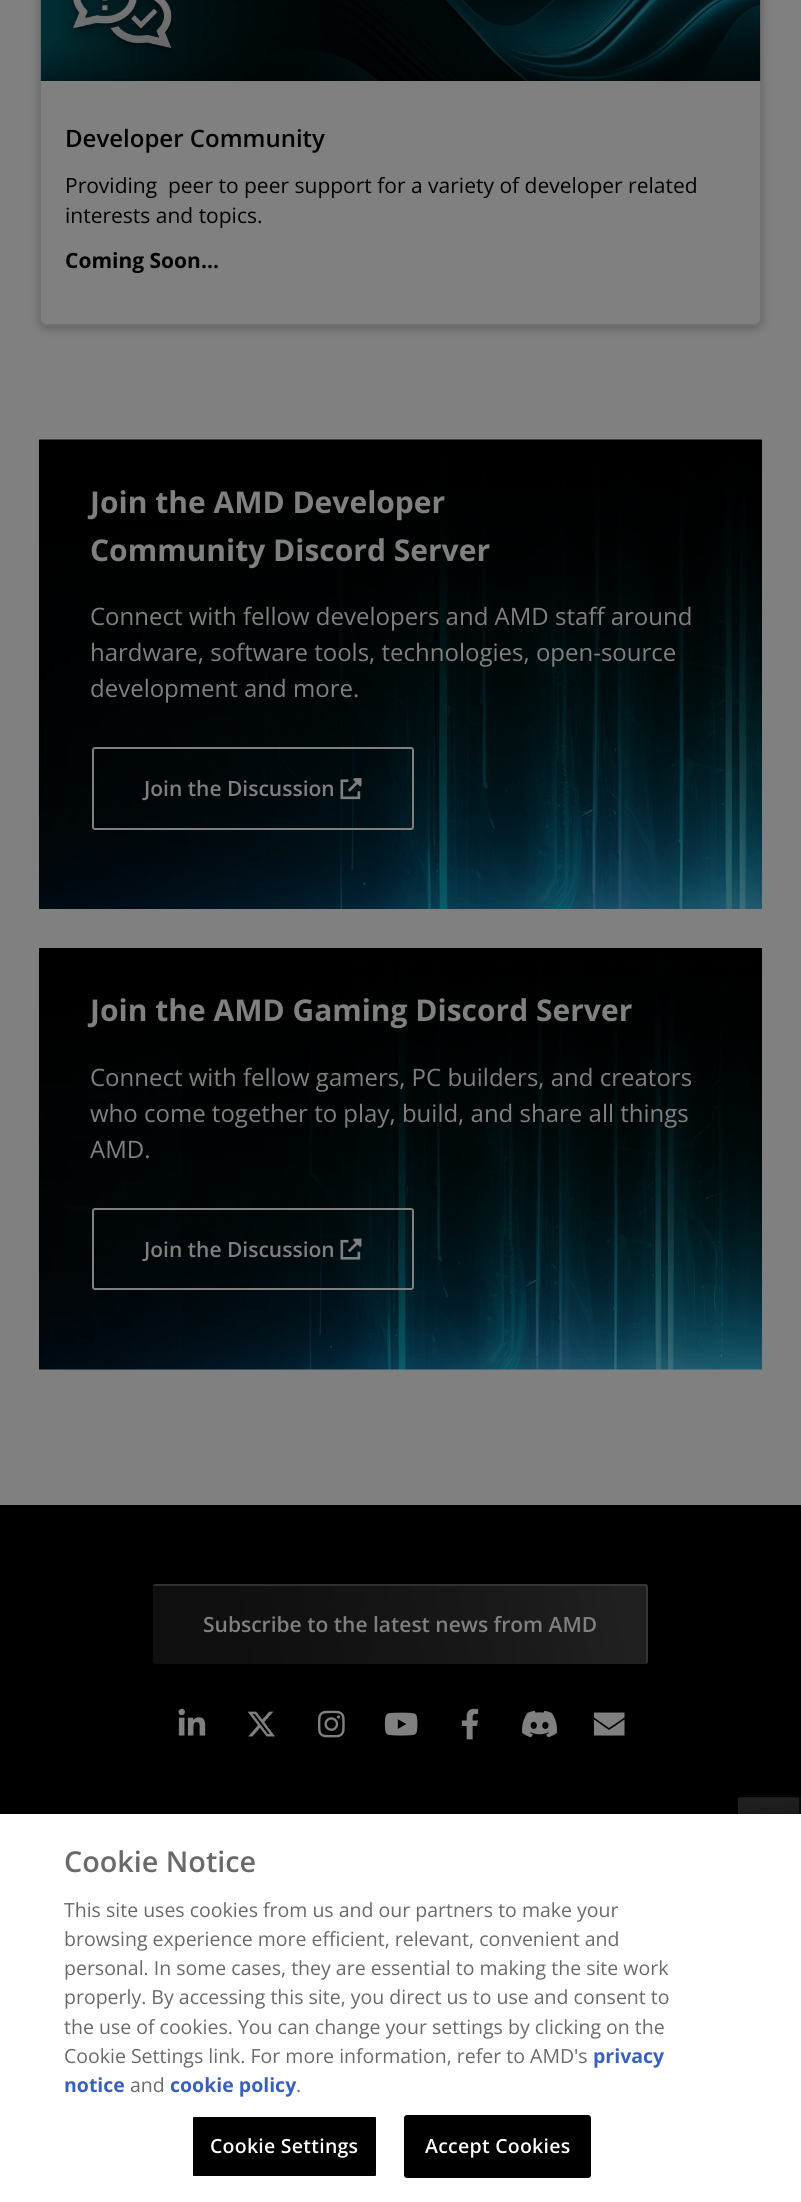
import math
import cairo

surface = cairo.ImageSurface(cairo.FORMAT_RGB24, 801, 2202)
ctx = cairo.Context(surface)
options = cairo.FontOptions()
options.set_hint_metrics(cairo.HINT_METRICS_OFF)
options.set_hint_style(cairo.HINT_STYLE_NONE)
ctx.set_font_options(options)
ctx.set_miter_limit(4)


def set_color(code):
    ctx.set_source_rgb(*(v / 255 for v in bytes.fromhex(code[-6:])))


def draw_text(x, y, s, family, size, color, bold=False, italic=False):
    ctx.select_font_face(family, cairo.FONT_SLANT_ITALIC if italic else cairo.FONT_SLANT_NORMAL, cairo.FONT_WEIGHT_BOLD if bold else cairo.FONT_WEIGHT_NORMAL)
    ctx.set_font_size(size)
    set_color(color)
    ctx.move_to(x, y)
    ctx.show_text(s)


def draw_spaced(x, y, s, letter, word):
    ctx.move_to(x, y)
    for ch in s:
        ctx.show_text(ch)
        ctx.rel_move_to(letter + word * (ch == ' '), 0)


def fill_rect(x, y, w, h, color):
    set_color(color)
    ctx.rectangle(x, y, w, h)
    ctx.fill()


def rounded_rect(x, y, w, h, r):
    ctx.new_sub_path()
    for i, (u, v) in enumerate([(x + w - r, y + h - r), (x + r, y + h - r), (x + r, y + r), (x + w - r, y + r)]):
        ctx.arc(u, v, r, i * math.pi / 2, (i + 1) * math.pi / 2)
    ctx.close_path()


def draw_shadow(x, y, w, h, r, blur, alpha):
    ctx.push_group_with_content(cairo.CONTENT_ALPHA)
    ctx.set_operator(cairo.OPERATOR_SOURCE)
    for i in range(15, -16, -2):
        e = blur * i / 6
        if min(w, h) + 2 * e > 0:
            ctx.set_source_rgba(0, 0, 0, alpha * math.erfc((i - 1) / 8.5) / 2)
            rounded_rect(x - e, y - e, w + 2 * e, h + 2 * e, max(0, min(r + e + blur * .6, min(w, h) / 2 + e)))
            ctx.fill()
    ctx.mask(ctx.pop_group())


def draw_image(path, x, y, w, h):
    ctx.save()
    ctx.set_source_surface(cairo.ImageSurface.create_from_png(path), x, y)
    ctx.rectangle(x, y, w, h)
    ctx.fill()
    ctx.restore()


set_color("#808080")
ctx.paint()
set_color("#000000")
draw_shadow(39, -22, 723, 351, 8, 4.5, 0.24)
set_color("#808080")
rounded_rect(39, -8, 723, 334, 8)
ctx.fill()
rounded_rect(40, -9, 721, 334, 7)
ctx.set_source_rgba(0, 0, 0, 0.12)
ctx.stroke()
draw_image("assets/img1.png", 40, 0, 721, 81)
draw_text(65, 147, "Developer Community", "Open Sans SemiBold", 24, "#000000")
draw_text(65, 193, "Providing  peer to peer support for a variety of developer related", "Open Sans", 21, "#000000")
draw_text(65, 223, "interests and topics.", "Open Sans", 21, "#000000")
draw_text(65, 268, "Coming Soon...", "Open Sans", 21, "#000000", bold=True)
draw_image("assets/img2.png", 39, 439, 723, 470)
draw_text(90, 513, "Join the AMD Developer", "Open Sans", 30, "#808080", bold=True)
draw_text(90, 561, "Community Discord Server", "Open Sans", 30, "#808080", bold=True)
draw_text(90, 625, "Connect with fellow developers and AMD staff around", "Open Sans", 24, "#808080")
draw_text(90, 661, "hardware, software tools, technologies, open-source", "Open Sans", 24, "#808080")
draw_text(90, 697, "development and more.", "Open Sans", 24, "#808080")
rounded_rect(93, 748, 320, 81, 2)
ctx.stroke()
draw_text(144, 796, "Join the Discussion", "Open Sans SemiBold", 21, "#808080")
draw_image("assets/img3.png", 340, 778, 22, 22)
draw_image("assets/img4.png", 39, 948, 723, 422)
gradient = cairo.LinearGradient(401, 948, 401, 1370)
gradient.add_color_stop_rgba(0, 0, 0, 0, 0.75)
gradient.add_color_stop_rgba(1, 0, 0, 0, 0)
ctx.set_source(gradient)
ctx.rectangle(182, 970, 580, 388)
ctx.fill()
draw_text(90, 1021, "Join the AMD Gaming Discord Server", "Open Sans", 30, "#808080", bold=True)
draw_text(90, 1086, "Connect with fellow gamers, PC builders, and creators", "Open Sans", 24, "#808080")
draw_text(90, 1122, "who come together to play, build, and share all things", "Open Sans", 24, "#808080")
draw_text(90, 1158, "AMD.", "Open Sans", 24, "#808080")
rounded_rect(93, 1209, 320, 80, 2)
ctx.stroke()
draw_text(144, 1257, "Join the Discussion", "Open Sans SemiBold", 21, "#808080")
draw_image("assets/img5.png", 340, 1238, 22, 22)
fill_rect(0, 1505, 801, 309, "#000000")
gradient = cairo.LinearGradient(154, 1669, 647, 1578)
gradient.add_color_stop_rgba(0.17, 0.059, 0.059, 0.059, 1)
gradient.add_color_stop_rgba(0.46, 0.078, 0.078, 0.078, 1)
gradient.add_color_stop_rgba(0.74, 0.102, 0.102, 0.102, 1)
gradient.add_color_stop_rgba(0.94, 0.125, 0.125, 0.125, 1)
ctx.set_source(gradient)
rounded_rect(153, 1584, 495, 80, 3)
ctx.fill()
ctx.set_source_rgba(0.263, 0.263, 0.263, 0.62)
ctx.new_path()
ctx.move_to(154, 1586)
ctx.line_to(644, 1586)
ctx.curve_to(645, 1586, 646, 1587, 646, 1588)
ctx.line_to(646, 1662)
ctx.line_to(646, 1664)
ctx.curve_to(647, 1664, 648, 1662, 648, 1661)
ctx.line_to(648, 1587)
ctx.curve_to(648, 1585, 647, 1584, 645, 1584)
ctx.line_to(156, 1584)
ctx.curve_to(155, 1584, 153, 1585, 153, 1586)
ctx.close_path()
ctx.fill()
draw_text(203, 1632, "Subscribe to the latest news from AMD", "Open Sans SemiBold", 21, "#808080")
draw_image("assets/img6.png", 178, 1708, 28, 28)
draw_image("assets/img7.png", 247, 1711, 28, 26)
draw_image("assets/img8.png", 318, 1710, 27, 28)
draw_image("assets/img9.png", 384, 1712, 34, 24)
draw_image("assets/img10.png", 461, 1708, 18, 32)
draw_image("assets/img11.png", 522, 1710, 35, 28)
ctx.new_path()
ctx.move_to(594, 1712.5)
ctx.line_to(624.5, 1712.5)
ctx.line_to(624.5, 1717.5)
ctx.line_to(609, 1728)
ctx.line_to(594, 1717.5)
ctx.close_path()
ctx.move_to(594, 1735.5)
ctx.line_to(594, 1719.5)
ctx.line_to(609, 1730)
ctx.line_to(624.5, 1719.5)
ctx.line_to(624.5, 1735.5)
ctx.close_path()
ctx.fill()
gradient = cairo.LinearGradient(721, 1800, 693, 1650)
gradient.add_color_stop_rgba(0.17, 0.059, 0.059, 0.059, 1)
gradient.add_color_stop_rgba(0.46, 0.078, 0.078, 0.078, 1)
gradient.add_color_stop_rgba(0.74, 0.102, 0.102, 0.102, 1)
gradient.add_color_stop_rgba(0.94, 0.125, 0.125, 0.125, 1)
ctx.set_source(gradient)
ctx.new_path()
ctx.move_to(738, 1796)
ctx.line_to(738, 1797)
ctx.line_to(737, 1797)
ctx.close_path()
ctx.fill()
gradient = cairo.LinearGradient(783, 1944, 755, 1794)
gradient.add_color_stop_rgba(0.17, 0.145, 0.145, 0.145, 0.4)
gradient.add_color_stop_rgba(0.46, 0.153, 0.153, 0.153, 0.5)
gradient.add_color_stop_rgba(0.74, 0.2, 0.2, 0.2, 0.5)
gradient.add_color_stop_rgba(0.94, 0.251, 0.251, 0.251, 0.5)
ctx.set_source(gradient)
ctx.rectangle(738, 1797, 62, 17)
ctx.fill()
gradient = cairo.LinearGradient(783, 1800, 755, 1650)
gradient.add_color_stop_rgba(0.17, 0.059, 0.059, 0.059, 1)
gradient.add_color_stop_rgba(0.46, 0.078, 0.078, 0.078, 1)
gradient.add_color_stop_rgba(0.74, 0.102, 0.102, 0.102, 1)
gradient.add_color_stop_rgba(0.94, 0.125, 0.125, 0.125, 1)
ctx.set_source(gradient)
ctx.new_path()
ctx.move_to(800, 1796)
ctx.line_to(800, 1797)
ctx.line_to(738, 1797)
ctx.line_to(738, 1796)
ctx.curve_to(740, 1795, 793, 1795, 798, 1796)
ctx.close_path()
ctx.fill()
gradient = cairo.LinearGradient(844, 1944, 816, 1794)
gradient.add_color_stop_rgba(0.17, 0.059, 0.059, 0.059, 1)
gradient.add_color_stop_rgba(0.46, 0.078, 0.078, 0.078, 1)
gradient.add_color_stop_rgba(0.74, 0.102, 0.102, 0.102, 1)
gradient.add_color_stop_rgba(0.94, 0.125, 0.125, 0.125, 1)
ctx.set_source(gradient)
ctx.new_path()
ctx.move_to(800, 1797)
ctx.line_to(801, 1797)
ctx.line_to(801, 1799)
ctx.line_to(801, 1941)
ctx.line_to(800, 1941)
ctx.close_path()
ctx.fill()
ctx.new_path()
ctx.move_to(737, 1940)
ctx.line_to(737, 1798.5)
ctx.curve_to(737, 1797.5, 738.5, 1796.5, 739.5, 1796.5)
ctx.line_to(798, 1796.5)
ctx.curve_to(799, 1796.5, 800, 1797.5, 800, 1798.5)
ctx.line_to(800, 1940)
ctx.curve_to(800, 1941, 799, 1942, 798, 1942)
ctx.line_to(739.5, 1942)
ctx.curve_to(738.5, 1942, 737, 1941, 737, 1940)
ctx.close_path()
set_color("#000000")
ctx.set_line_width(1.5)
ctx.stroke()
set_color("#000000")
draw_shadow(0, 1814, 801, 388, 0, 13.5, 0.2)
fill_rect(0, 1814, 801, 388, "#ffffff")
draw_text(64, 1872, "Cookie Notice", "Open Sans SemiBold", 28.75, "#696969")
draw_text(64, 1917, "This site uses cookies from us and our partners to make your", "Open Sans", 19.5, "#696969")
draw_text(64, 1946, "browsing experience more efficient, relevant, convenient and", "Open Sans", 19.5, "#696969")
draw_text(64, 1975, "personal. In some cases, they are essential to making the site work", "Open Sans", 19.5, "#696969")
draw_text(64, 2004, "properly. By accessing this site, you direct us to use and consent to", "Open Sans", 19.5, "#696969")
draw_text(64, 2034, "the use of cookies. You can change your settings by clicking on the", "Open Sans", 19.5, "#696969")
draw_text(64, 2063, "Cookie Settings link. For more information, refer to AMD's", "Open Sans", 19.5, "#696969")
draw_text(593, 2063, "privacy", "Open Sans", 19.5, "#3860be", bold=True)
draw_text(64, 2092, "notice", "Open Sans", 19.5, "#3860be", bold=True)
draw_text(130, 2092, "and", "Open Sans", 19.5, "#696969")
draw_text(170, 2092, "cookie policy", "Open Sans", 19.5, "#3860be", bold=True)
draw_text(296, 2092, ".", "Open Sans", 19.5, "#696969")
set_color("#000000")
rounded_rect(192, 2116, 185, 61, 2)
ctx.fill_preserve()
set_color("#ffffff")
ctx.set_line_width(2)
ctx.stroke()
ctx.select_font_face("Open Sans SemiBold")
draw_spaced(210, 2153, "Cookie Settings", 0.25, 0)
set_color("#000000")
rounded_rect(405, 2116, 185, 61, 2)
ctx.fill_preserve()
ctx.stroke()
set_color("#ffffff")
draw_spaced(425, 2153, "Accept Cookies", 0.25, 0)
surface.write_to_png("output.png")
